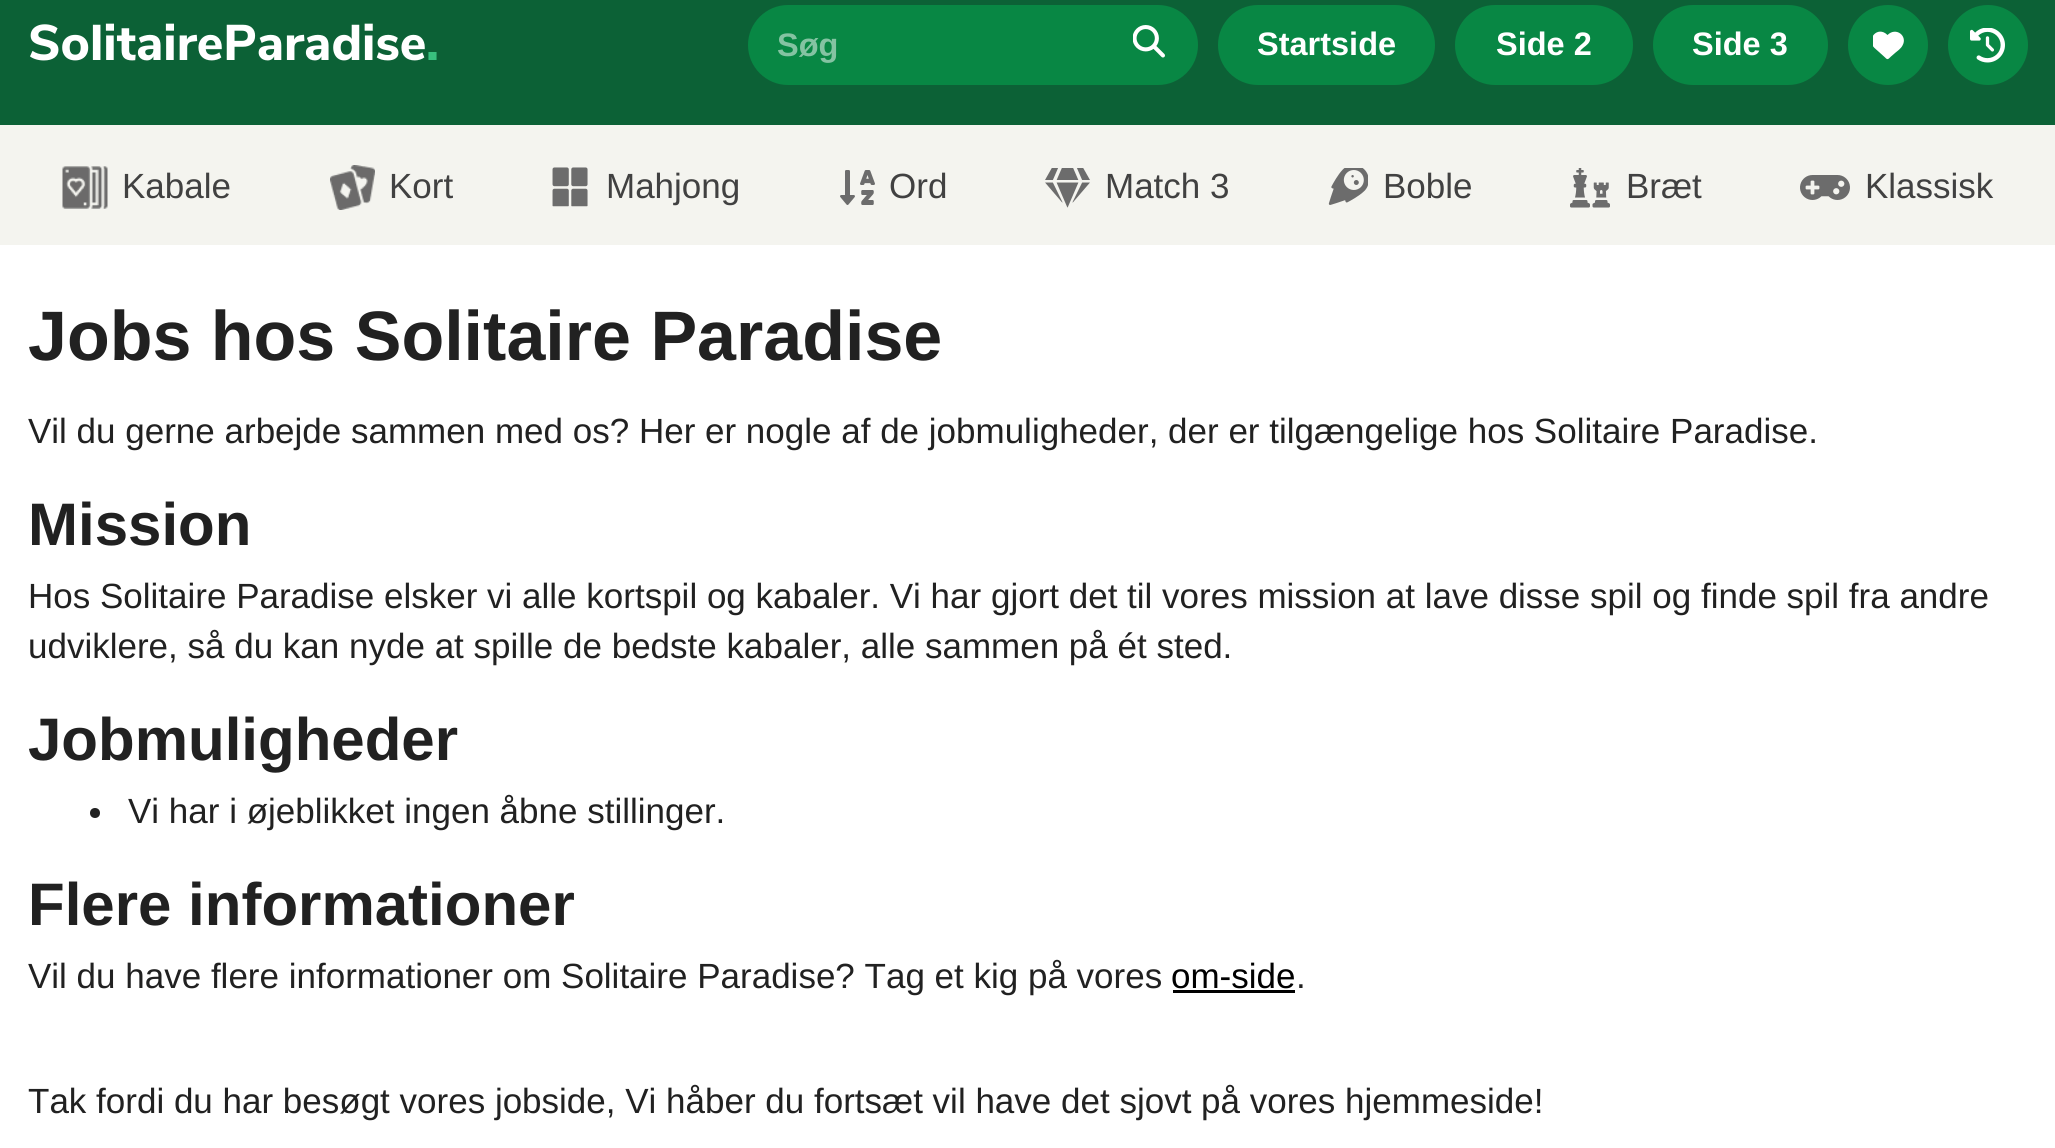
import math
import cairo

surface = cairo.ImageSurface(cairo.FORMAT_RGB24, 2055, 1148)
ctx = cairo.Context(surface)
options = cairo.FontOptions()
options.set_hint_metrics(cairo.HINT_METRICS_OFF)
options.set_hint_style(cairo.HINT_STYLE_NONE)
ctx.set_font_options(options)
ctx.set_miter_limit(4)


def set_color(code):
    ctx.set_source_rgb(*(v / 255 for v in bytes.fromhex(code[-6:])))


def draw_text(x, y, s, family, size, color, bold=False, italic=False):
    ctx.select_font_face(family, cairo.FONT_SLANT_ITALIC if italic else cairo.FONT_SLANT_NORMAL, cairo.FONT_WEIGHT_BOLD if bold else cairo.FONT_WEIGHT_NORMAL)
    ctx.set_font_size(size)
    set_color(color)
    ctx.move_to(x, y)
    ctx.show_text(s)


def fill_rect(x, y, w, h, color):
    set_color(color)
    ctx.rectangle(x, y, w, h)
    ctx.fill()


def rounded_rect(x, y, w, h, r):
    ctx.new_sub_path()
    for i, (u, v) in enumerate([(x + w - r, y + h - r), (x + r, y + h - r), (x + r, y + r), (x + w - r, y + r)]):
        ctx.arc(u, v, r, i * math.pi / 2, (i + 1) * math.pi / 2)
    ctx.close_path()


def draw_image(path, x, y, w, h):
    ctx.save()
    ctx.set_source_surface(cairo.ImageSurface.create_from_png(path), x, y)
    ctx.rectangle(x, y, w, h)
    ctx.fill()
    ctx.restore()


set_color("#ffffff")
ctx.paint()
fill_rect(0, 0, 2055, 125, "#0c6136")
draw_text(28, 60, "SolitaireParadise", "Nunito Sans ExtraBold", 50, "#ffffff")
draw_text(426, 60, ".", "Nunito Sans ExtraBold", 50, "#39c07e")
set_color("#088744")
ctx.new_path()
ctx.move_to(788, 5)
ctx.line_to(1113, 5)
ctx.line_to(1113, 85)
ctx.line_to(788, 85)
ctx.curve_to(766, 85, 748, 67, 748, 45)
ctx.curve_to(748, 23, 766, 5, 788, 5)
ctx.close_path()
ctx.fill()
draw_text(777, 56, "Søg", "Liberation Sans", 32.5, "#84c3a2", bold=True)
set_color("#088744")
ctx.new_path()
ctx.move_to(1113, 5)
ctx.line_to(1158, 5)
ctx.curve_to(1180, 5, 1198, 23, 1198, 45)
ctx.curve_to(1198, 67, 1180, 85, 1158, 85)
ctx.line_to(1113, 85)
ctx.close_path()
ctx.fill()
draw_image("assets/img1.png", 1133, 25, 32, 33)
rounded_rect(1218, 5, 217, 80, 40)
ctx.fill()
draw_text(1257, 55, "Startside", "Liberation Sans", 32.5, "#ffffff", bold=True)
set_color("#088744")
rounded_rect(1455, 5, 178, 80, 40)
ctx.fill()
draw_text(1496, 55, "Side 2", "Liberation Sans", 32.5, "#ffffff", bold=True)
set_color("#088744")
rounded_rect(1653, 5, 175, 80, 40)
ctx.fill()
draw_text(1692, 55, "Side 3", "Liberation Sans", 32.5, "#ffffff", bold=True)
set_color("#088744")
ctx.new_path()
ctx.arc(1888, 45, 40, 0, 2 * math.pi)
ctx.fill()
ctx.save()
ctx.rectangle(1873, 30, 32, 33)
ctx.clip()
set_color("#ffffff")
ctx.new_path()
ctx.move_to(1874.5, 48)
ctx.line_to(1884, 56.5)
ctx.curve_to(1887.5, 60, 1887.5, 60, 1891, 56.5)
ctx.line_to(1895, 53)
ctx.curve_to(1897.5, 51, 1901, 48.5, 1902.5, 45.5)
ctx.curve_to(1908, 36, 1896, 26.5, 1887.5, 35)
ctx.curve_to(1877.5, 25, 1865.5, 39.5, 1874.5, 48)
ctx.close_path()
ctx.fill()
ctx.restore()
ctx.arc(1988, 45, 40, 0, 2 * math.pi)
ctx.fill()
draw_image("assets/img2.png", 1970, 28, 35, 35)
fill_rect(0, 125, 2055, 120, "#f4f4ef")
draw_image("assets/img3.png", 62, 166, 46, 43)
draw_text(122, 198, "Kabale", "Liberation Sans", 35, "#414141")
draw_image("assets/img4.png", 330, 165, 45, 45)
draw_text(389, 198, "Kort", "Liberation Sans", 35, "#414141")
draw_image("assets/img5.png", 552, 167, 36, 40)
draw_text(606, 198, "Mahjong", "Liberation Sans", 35, "#414141")
draw_image("assets/img6.png", 840, 170, 35, 35)
draw_text(889, 198, "Ord", "Liberation Sans", 35, "#414141")
draw_image("assets/img7.png", 1045, 168, 45, 40)
draw_text(1105, 198, "Match 3", "Liberation Sans", 35, "#414141")
draw_image("assets/img8.png", 1328, 168, 40, 37)
draw_text(1383, 198, "Boble", "Liberation Sans", 35, "#414141")
draw_image("assets/img9.png", 1570, 168, 40, 40)
draw_text(1626, 198, "Bræt", "Liberation Sans", 35, "#414141")
draw_image("assets/img10.png", 1800, 175, 50, 25)
draw_text(1865, 198, "Klassisk", "Liberation Sans", 35, "#414141")
draw_text(28, 360, "Jobs hos Solitaire Paradise", "Liberation Sans", 70, "#212121", bold=True)
draw_text(28, 443, "Vil du gerne arbejde sammen med os? Her er nogle af de jobmuligheder, der er tilgængelige hos Solitaire Paradise.", "Liberation Sans", 35, "#212121")
draw_text(28, 545, "Mission", "Liberation Sans", 60, "#212121", bold=True)
draw_text(28, 608, "Hos Solitaire Paradise elsker vi alle kortspil og kabaler. Vi har gjort det til vores mission at lave disse spil og finde spil fra andre", "Liberation Sans", 35, "#212121")
draw_text(28, 658, "udviklere, så du kan nyde at spille de bedste kabaler, alle sammen på ét sted.", "Liberation Sans", 35, "#212121")
draw_text(28, 760, "Jobmuligheder", "Liberation Sans", 60, "#212121", bold=True)
ctx.new_path()
ctx.arc(95, 813, 5, 0, 2 * math.pi)
ctx.fill()
draw_text(128, 823, "Vi har i øjeblikket ingen åbne stillinger.", "Liberation Sans", 35, "#212121")
draw_text(28, 925, "Flere informationer", "Liberation Sans", 60, "#212121", bold=True)
draw_text(28, 988, "Vil du have flere informationer om Solitaire Paradise? Tag et kig på vores", "Liberation Sans", 35, "#212121")
draw_text(1171, 988, "om-side", "Liberation Sans", 35, "#000000")
fill_rect(1173, 990, 122, 3, "#000000")
draw_text(1296, 988, ".", "Liberation Sans", 35, "#212121")
draw_text(28, 1113, "Tak fordi du har besøgt vores jobside, Vi håber du fortsæt vil have det sjovt på vores hjemmeside!", "Liberation Sans", 35, "#212121")
surface.write_to_png("output.png")
